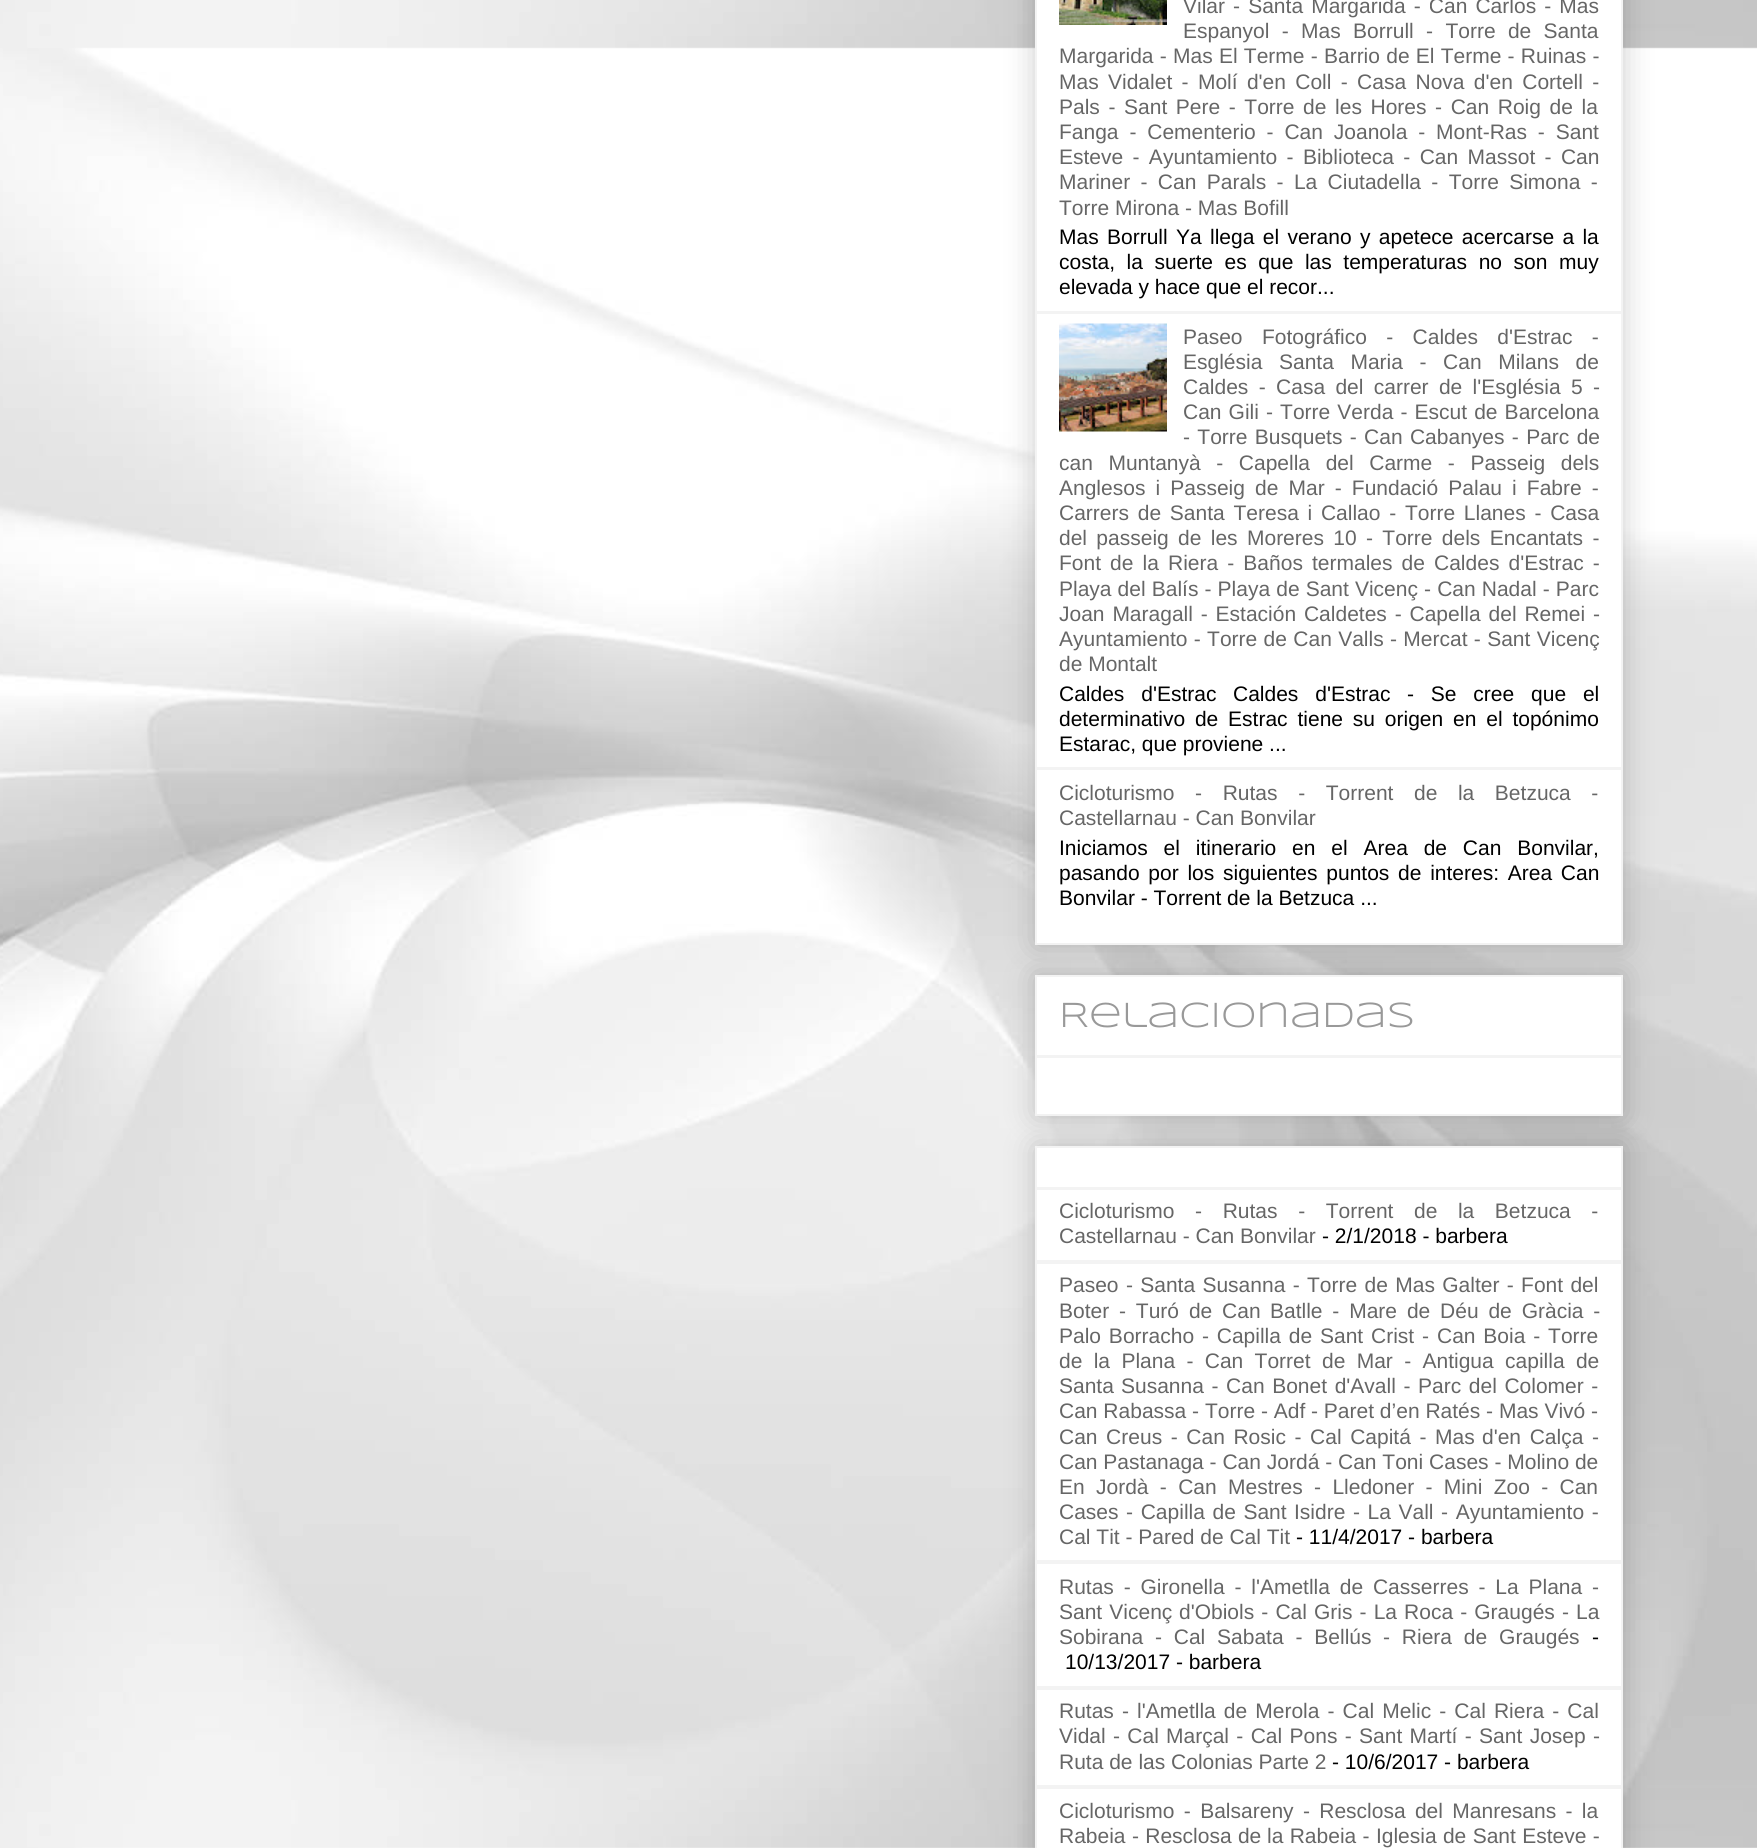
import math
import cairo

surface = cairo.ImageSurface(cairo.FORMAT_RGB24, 1757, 1848)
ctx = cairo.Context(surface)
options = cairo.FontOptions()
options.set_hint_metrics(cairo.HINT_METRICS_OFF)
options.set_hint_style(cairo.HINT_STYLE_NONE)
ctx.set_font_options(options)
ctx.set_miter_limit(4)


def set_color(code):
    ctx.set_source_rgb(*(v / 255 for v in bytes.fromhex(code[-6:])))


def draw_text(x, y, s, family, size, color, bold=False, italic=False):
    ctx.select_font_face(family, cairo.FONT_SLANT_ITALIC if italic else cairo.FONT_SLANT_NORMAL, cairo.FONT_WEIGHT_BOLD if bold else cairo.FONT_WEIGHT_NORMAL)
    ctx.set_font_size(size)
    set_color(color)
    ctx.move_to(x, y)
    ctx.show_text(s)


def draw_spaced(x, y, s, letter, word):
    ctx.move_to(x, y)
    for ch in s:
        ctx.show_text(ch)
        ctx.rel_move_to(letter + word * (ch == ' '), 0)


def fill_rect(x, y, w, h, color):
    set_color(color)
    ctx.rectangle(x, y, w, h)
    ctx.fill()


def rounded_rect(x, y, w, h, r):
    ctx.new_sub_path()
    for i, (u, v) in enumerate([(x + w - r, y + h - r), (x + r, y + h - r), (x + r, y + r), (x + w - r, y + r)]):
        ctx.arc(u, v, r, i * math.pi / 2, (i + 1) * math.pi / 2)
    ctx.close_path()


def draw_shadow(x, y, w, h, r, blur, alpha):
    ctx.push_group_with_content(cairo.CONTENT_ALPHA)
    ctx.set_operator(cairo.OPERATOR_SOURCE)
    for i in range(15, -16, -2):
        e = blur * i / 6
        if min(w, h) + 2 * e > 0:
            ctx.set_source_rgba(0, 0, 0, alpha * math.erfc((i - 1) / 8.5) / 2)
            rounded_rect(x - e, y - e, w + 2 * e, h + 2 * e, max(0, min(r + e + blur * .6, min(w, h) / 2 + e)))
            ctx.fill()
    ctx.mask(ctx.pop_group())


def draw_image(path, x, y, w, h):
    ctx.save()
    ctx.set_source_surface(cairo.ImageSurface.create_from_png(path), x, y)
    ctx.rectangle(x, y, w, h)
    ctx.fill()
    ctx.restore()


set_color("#ffffff")
ctx.paint()
draw_image("assets/img1.png", 0, 0, 1757, 1848)
set_color("#000000")
draw_shadow(1035, -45, 588, 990, 0, 15, 0.2)
set_color("#ffffff")
ctx.rectangle(1036, -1, 586, 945)
ctx.fill_preserve()
set_color("#f3f3f3")
ctx.stroke()
fill_rect(1037, 311, 585, 3, "#f3f3f3")
ctx.select_font_face("Liberation Sans")
ctx.set_font_size(21)
set_color("#666666")
draw_spaced(1183, 13, "Vilar - Santa Margarida - Can Carlos - Mas", 0, 2.25)
draw_spaced(1183, 38, "Espanyol - Mas Borrull - Torre de Santa", 0, 6.5)
draw_spaced(1059, 63, "Margarida - Mas El Terme - Barrio de El Terme - Ruinas -", 0, 0.4)
draw_spaced(1059, 89, "Mas Vidalet - Molí d'en Coll - Casa Nova d'en Cortell -", 0, 3.5)
draw_spaced(1059, 114, "Pals - Sant Pere - Torre de les Hores - Can Roig de la", 0, 2.75)
draw_spaced(1059, 139, "Fanga - Cementerio - Can Joanola - Mont-Ras - Sant", 0, 5)
draw_spaced(1059, 164, "Esteve - Ayuntamiento - Biblioteca - Can Massot - Can", 0, 3.5)
draw_spaced(1059, 189, "Mariner - Can Parals - La Ciutadella - Torre Simona -", 0, 4.5)
draw_text(1059, 215, "Torre Mirona - Mas Bofill", "Liberation Sans", 21, "#666666")
draw_image("assets/img2.png", 1059, 0, 108, 25)
set_color("#000000")
draw_spaced(1059, 244, "Mas Borrull", 0, 2.5)
draw_spaced(1176, 244, "Ya llega el verano y apetece acercarse a la", 0, 2.5)
draw_spaced(1059, 269, "costa, la suerte es que las temperaturas no son muy", 0, 5.75)
draw_text(1059, 294, "elevada y hace que el recor...", "Liberation Sans", 21, "#000000")
fill_rect(1037, 767, 585, 3, "#f3f3f3")
draw_image("assets/img3.png", 1059, 323, 108, 109)
set_color("#666666")
draw_spaced(1183, 344, "Paseo Fotográfico - Caldes d'Estrac -", 0, 13.5)
draw_spaced(1183, 369, "Església Santa Maria - Can Milans de", 0, 10.75)
draw_spaced(1183, 394, "Caldes - Casa del carrer de l'Església 5 -", 0, 4.5)
draw_spaced(1183, 419, "Can Gili - Torre Verda - Escut de Barcelona", 0, 1.25)
draw_spaced(1183, 444, "- Torre Busquets - Can Cabanyes - Parc de", 0, 1.5)
draw_spaced(1059, 470, "can Muntanyà - Capella del Carme - Passeig dels", 0, 9.75)
draw_spaced(1059, 495, "Anglesos i Passeig de Mar - Fundació Palau i Fabre -", 0, 4.25)
draw_spaced(1059, 520, "Carrers de Santa Teresa i Callao - Torre Llanes - Casa", 0, 2.9)
draw_spaced(1059, 545, "del passeig de les Moreres 10 - Torre dels Encantats -", 0, 3.5)
draw_spaced(1059, 570, "Font de la Riera - Baños termales de Caldes d'Estrac -", 0, 3.25)
draw_spaced(1059, 596, "Playa del Balís - Playa de Sant Vicenç - Can Nadal - Parc", 0, 0.25)
draw_spaced(1059, 621, "Joan Maragall - Estación Caldetes - Capella del Remei -", 0, 2)
draw_spaced(1059, 646, "Ayuntamiento - Torre de Can Valls - Mercat - Sant Vicenç", 0, 0.5)
draw_text(1059, 671, "de Montalt", "Liberation Sans", 21, "#666666")
set_color("#000000")
draw_spaced(1059, 701, "Caldes d'Estrac", 0, 11)
draw_spaced(1233, 701, "Caldes d'Estrac", 0, 11)
draw_spaced(1407, 701, "- Se cree que el", 0, 11)
draw_spaced(1059, 726, "determinativo de Estrac tiene su origen en el topónimo", 0, 4)
draw_text(1059, 751, "Estarac, que proviene ...", "Liberation Sans", 21, "#000000")
set_color("#666666")
draw_spaced(1059, 800, "Cicloturismo - Rutas - Torrent de la Betzuca -", 0, 14.75)
draw_text(1059, 825, "Castellarnau - Can Bonvilar", "Liberation Sans", 21, "#666666")
set_color("#000000")
draw_spaced(1059, 855, "Iniciamos el itinerario en el Area de Can Bonvilar,", 0, 10)
draw_spaced(1059, 880, "pasando por los siguientes puntos de interes: Area Can", 0, 2.9)
draw_text(1059, 905, "Bonvilar - Torrent de la Betzuca ...", "Liberation Sans", 21, "#000000")
set_color("#000000")
draw_shadow(1035, 975, 588, 141, 0, 15, 0.2)
set_color("#ffffff")
ctx.rectangle(1036, 976, 586, 139)
ctx.fill_preserve()
set_color("#f3f3f3")
ctx.stroke()
draw_text(1059, 1027, "Relacionadas", "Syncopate", 36, "#999999")
fill_rect(1037, 1055, 585, 3, "#f3f3f3")
set_color("#000000")
draw_shadow(1035, 1146, 588, 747, 0, 15, 0.2)
set_color("#ffffff")
ctx.rectangle(1036, 1147, 586, 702)
ctx.fill_preserve()
set_color("#f3f3f3")
ctx.stroke()
fill_rect(1037, 1187, 585, 3, "#f3f3f3")
fill_rect(1037, 1260, 585, 4, "#f3f3f3")
ctx.select_font_face("Liberation Sans")
ctx.set_font_size(21)
set_color("#666666")
draw_spaced(1059, 1218, "Cicloturismo - Rutas - Torrent de la Betzuca -", 0, 14.75)
draw_text(1059, 1243, "Castellarnau - Can Bonvilar", "Liberation Sans", 21, "#666666")
draw_text(1322, 1243, "- 2/1/2018 - barbera", "Liberation Sans", 21, "#000000")
fill_rect(1037, 1560, 585, 4, "#f3f3f3")
set_color("#666666")
draw_spaced(1059, 1292, "Paseo - Santa Susanna - Torre de Mas Galter - Font del", 0, 1.5)
draw_spaced(1059, 1318, "Boter - Turó de Can", 0, 4)
draw_spaced(1270, 1318, "Batlle - Mare de Déu de Gràcia -", 0, 4)
draw_spaced(1059, 1343, "Palo Borracho - Capilla de Sant Crist -", 0, 2)
draw_spaced(1437, 1343, "Can Boia - Torre", 0, 2)
draw_spaced(1059, 1368, "de la Plana - Can Torret de Mar - Antigua capilla de", 0, 5.5)
draw_text(1059, 1393, "Santa", "Liberation Sans", 21, "#666666")
draw_spaced(1121, 1393, "Susanna - Can Bonet d'Avall - Parc del Colomer -", 0, 1.75)
draw_text(1059, 1418, "Can Rabassa - Torre - Adf", "Liberation Sans", 21, "#666666")
draw_text(1311, 1418, "- Paret d’en Ratés - Mas Vivó -", "Liberation Sans", 21, "#666666")
draw_spaced(1059, 1444, "Can Creus - Can Rosic - Cal Capitá - Mas", 0, 2.75)
draw_spaced(1482, 1444, "d'en Calça -", 0, 2.75)
draw_text(1059, 1469, "Can Pastanaga - Can Jordá - Can Toni Cases - Molino de", "Liberation Sans", 21, "#666666")
draw_text(1059, 1494, "En", "Liberation Sans", 21, "#666666")
draw_spaced(1096, 1494, "Jordà - Can Mestres - Lledoner - Mini Zoo - Can", 0, 5.5)
draw_spaced(1059, 1519, "Cases - Capilla de Sant", 0, 1.75)
draw_spaced(1294, 1519, "Isidre - La Vall - Ayuntamiento -", 0, 1.75)
draw_text(1059, 1544, "Cal Tit - Pared de Cal Tit", "Liberation Sans", 21, "#666666")
draw_text(1296, 1544, "- 11/4/2017 - barbera", "Liberation Sans", 21, "#000000")
fill_rect(1037, 1686, 585, 4, "#f3f3f3")
set_color("#666666")
draw_spaced(1059, 1594, "Rutas - Gironella - l'Ametlla de Casserres - La Plana -", 0, 4)
draw_spaced(1059, 1619, "Sant Vicenç", 0, 1.25)
draw_spaced(1179, 1619, "d'Obiols - Cal Gris - La Roca - Graugés - La", 0, 1.25)
draw_spaced(1059, 1644, "Sobirana - Cal Sabata - Bellús", 0, 6)
draw_spaced(1383, 1644, "- Riera de Graugés", 0, 6)
draw_text(1592, 1644, "-", "Liberation Sans", 21, "#000000")
draw_text(1065, 1669, "10/13/2017 - barbera", "Liberation Sans", 21, "#000000")
fill_rect(1037, 1785, 585, 4, "#f3f3f3")
set_color("#666666")
draw_spaced(1059, 1718, "Rutas - l'Ametlla de Merola - Cal Melic - Cal Riera - Cal", 0, 2.25)
draw_spaced(1059, 1743, "Vidal - Cal", 0, 1.5)
draw_spaced(1166, 1743, "Marçal - Cal Pons - Sant Martí - Sant Josep -", 0, 1.5)
draw_text(1059, 1769, "Ruta de las Colonias Parte 2", "Liberation Sans", 21, "#666666")
draw_text(1332, 1769, "- 10/6/2017 - barbera", "Liberation Sans", 21, "#000000")
set_color("#666666")
draw_spaced(1059, 1818, "Cicloturismo - Balsareny - Resclosa del Manresans - la", 0, 3.5)
draw_spaced(1059, 1843, "Rabeia - Resclosa de", 0, 0.5)
draw_spaced(1267, 1843, "la Rabeia - Iglesia de Sant Esteve -", 0, 0.5)
surface.write_to_png("output.png")
